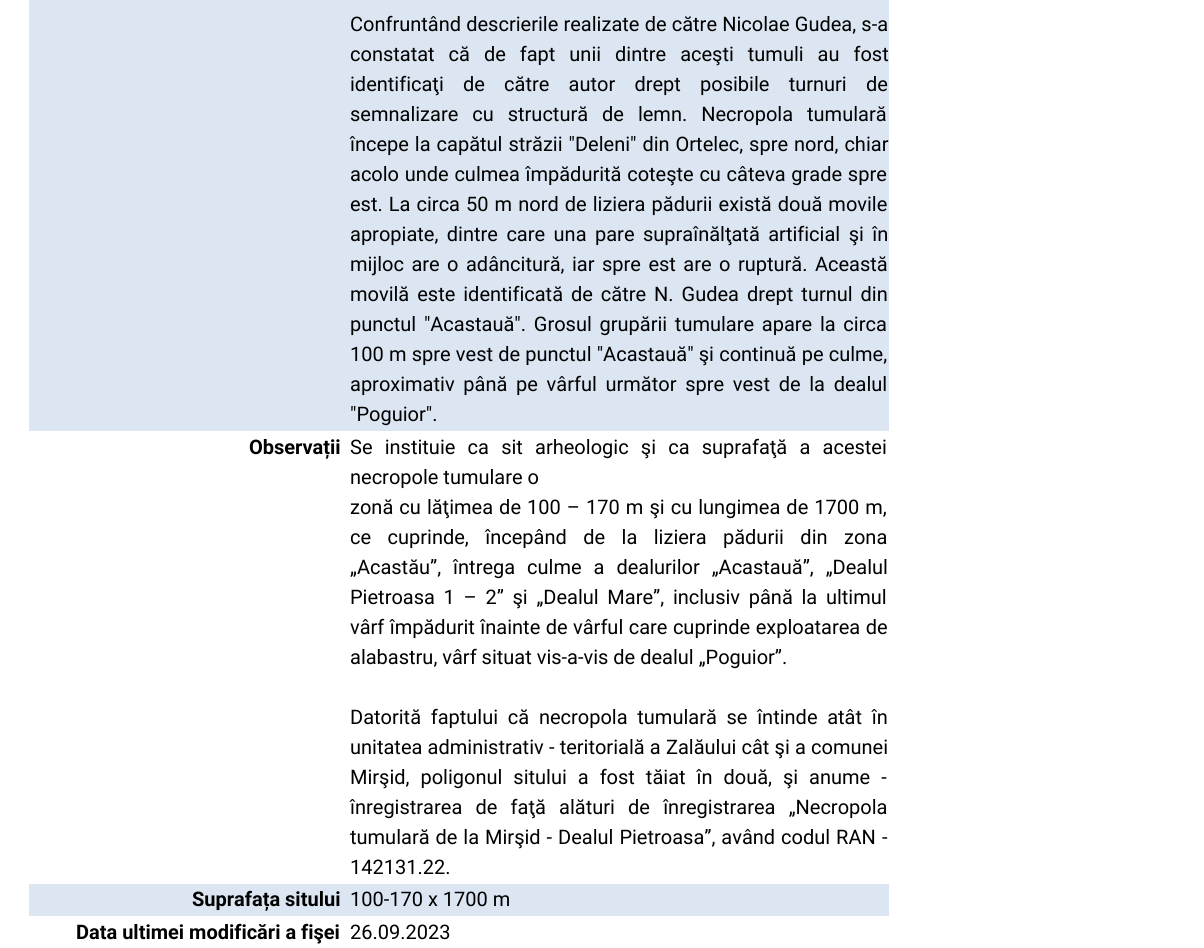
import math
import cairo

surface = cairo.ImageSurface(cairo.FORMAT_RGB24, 1204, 948)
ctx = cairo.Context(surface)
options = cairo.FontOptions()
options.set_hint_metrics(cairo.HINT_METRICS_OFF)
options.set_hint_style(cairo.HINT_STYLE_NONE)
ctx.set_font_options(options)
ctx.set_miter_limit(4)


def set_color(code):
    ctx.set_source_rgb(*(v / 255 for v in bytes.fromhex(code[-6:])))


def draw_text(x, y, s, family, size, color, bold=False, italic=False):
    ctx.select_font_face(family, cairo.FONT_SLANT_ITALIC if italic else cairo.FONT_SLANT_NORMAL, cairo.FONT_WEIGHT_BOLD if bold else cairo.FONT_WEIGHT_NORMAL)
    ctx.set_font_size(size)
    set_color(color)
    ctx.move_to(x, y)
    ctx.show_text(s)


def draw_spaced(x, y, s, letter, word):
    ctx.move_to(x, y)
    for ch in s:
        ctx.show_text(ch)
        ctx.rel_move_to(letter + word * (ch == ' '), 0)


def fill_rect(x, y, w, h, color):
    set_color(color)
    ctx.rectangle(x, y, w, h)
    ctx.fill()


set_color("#ffffff")
ctx.paint()
fill_rect(29, 0, 860, 431, "#dbe6f2")
ctx.select_font_face("Roboto")
ctx.set_font_size(20)
set_color("#000000")
draw_spaced(350, 31, "Confruntând descrierile realizate de către Nicolae Gudea, s-a", 0, 0.25)
draw_spaced(350, 61, "constatat că de fapt unii dintre aceşti tumuli au fost", 0, 9)
draw_spaced(350, 91, "identificaţi de către autor drept posibile turnuri de", 0, 14.25)
draw_spaced(350, 121, "semnalizare cu structură de lemn. Necropola tumulară", 0, 9)
draw_spaced(350, 151, "începe la capătul străzii \"Deleni\" din Ortelec, spre nord, chiar", 0, 1)
draw_spaced(350, 181, "acolo unde culmea împădurită coteşte cu câteva grade spre", 0, 0.75)
draw_spaced(350, 211, "est. La circa 50 m nord de liziera pădurii există două movile", 0, 1.1)
draw_spaced(350, 241, "apropiate, dintre care una pare supraînălţată artificial şi în", 0, 3.5)
draw_spaced(350, 271, "mijloc are o adâncitură, iar spre est are o ruptură. Această", 0, 2.5)
draw_spaced(350, 301, "movilă este identificată de către N. Gudea drept turnul din", 0, 3)
draw_spaced(350, 331, "punctul \"Acastauă\". Grosul grupării tumulare apare la circa", 0, 2.75)
draw_spaced(350, 361, "100 m spre vest de punctul \"Acastauă\" şi continuă pe culme,", 0, 0.25)
draw_spaced(350, 391, "aproximativ până pe vârful următor spre vest de la dealul", 0, 3.75)
draw_text(350, 421, "\"Poguior\".", "Roboto", 20, "#000000")
draw_text(249, 454, "Observații", "Roboto", 20, "#000000", bold=True)
ctx.select_font_face("Roboto")
draw_spaced(350, 454, "Se instituie ca sit arheologic şi ca suprafaţă a acestei", 0, 7.25)
draw_text(350, 484, "necropole tumulare o", "Roboto", 20, "#000000")
draw_spaced(350, 514, "zonă cu lăţimea de 100 – 170 m şi cu lungimea de 1700 m,", 0, 1.1)
draw_spaced(350, 544, "ce cuprinde, începând de la liziera pădurii din zona", 0, 11.5)
draw_spaced(350, 574, "„Acastău”, întrega culme a dealurilor „Acastauă”, „Dealul", 0, 7)
draw_spaced(350, 604, "Pietroasa 1 – 2” şi „Dealul Mare”, inclusiv până la ultimul", 0, 3.75)
draw_spaced(350, 634, "vârf împădurit înainte de vârful care cuprinde exploatarea de", 0, 0.5)
draw_text(350, 664, "alabastru, vârf situat vis-a-vis de dealul „Poguior”.", "Roboto", 20, "#000000")
draw_spaced(350, 724, "Datorită faptului că necropola tumulară se întinde atât în", 0, 4.75)
draw_spaced(350, 754, "unitatea administrativ - teritorială a Zalăului cât şi a comunei", 0, 0.25)
draw_spaced(350, 784, "Mirşid, poligonul sitului a fost tăiat în două, şi anume -", 0, 6)
draw_spaced(350, 814, "înregistrarea de faţă alături de înregistrarea „Necropola", 0, 8.25)
draw_spaced(350, 844, "tumulară de la Mirşid - Dealul Pietroasa”, având codul RAN", 0, 1)
draw_text(882, 844, "-", "Roboto", 20, "#000000")
draw_text(350, 874, "142131.22.", "Roboto", 20, "#000000")
fill_rect(29, 884, 860, 32, "#dbe6f2")
draw_text(192, 906, "Suprafața sitului", "Roboto", 20, "#000000", bold=True)
draw_text(350, 906, "100-170 x 1700 m", "Roboto", 20, "#000000")
draw_text(76, 939, "Data ultimei modificări a fişei", "Roboto", 20, "#000000", bold=True)
draw_text(350, 939, "26.09.2023", "Roboto", 20, "#000000")
surface.write_to_png("output.png")
